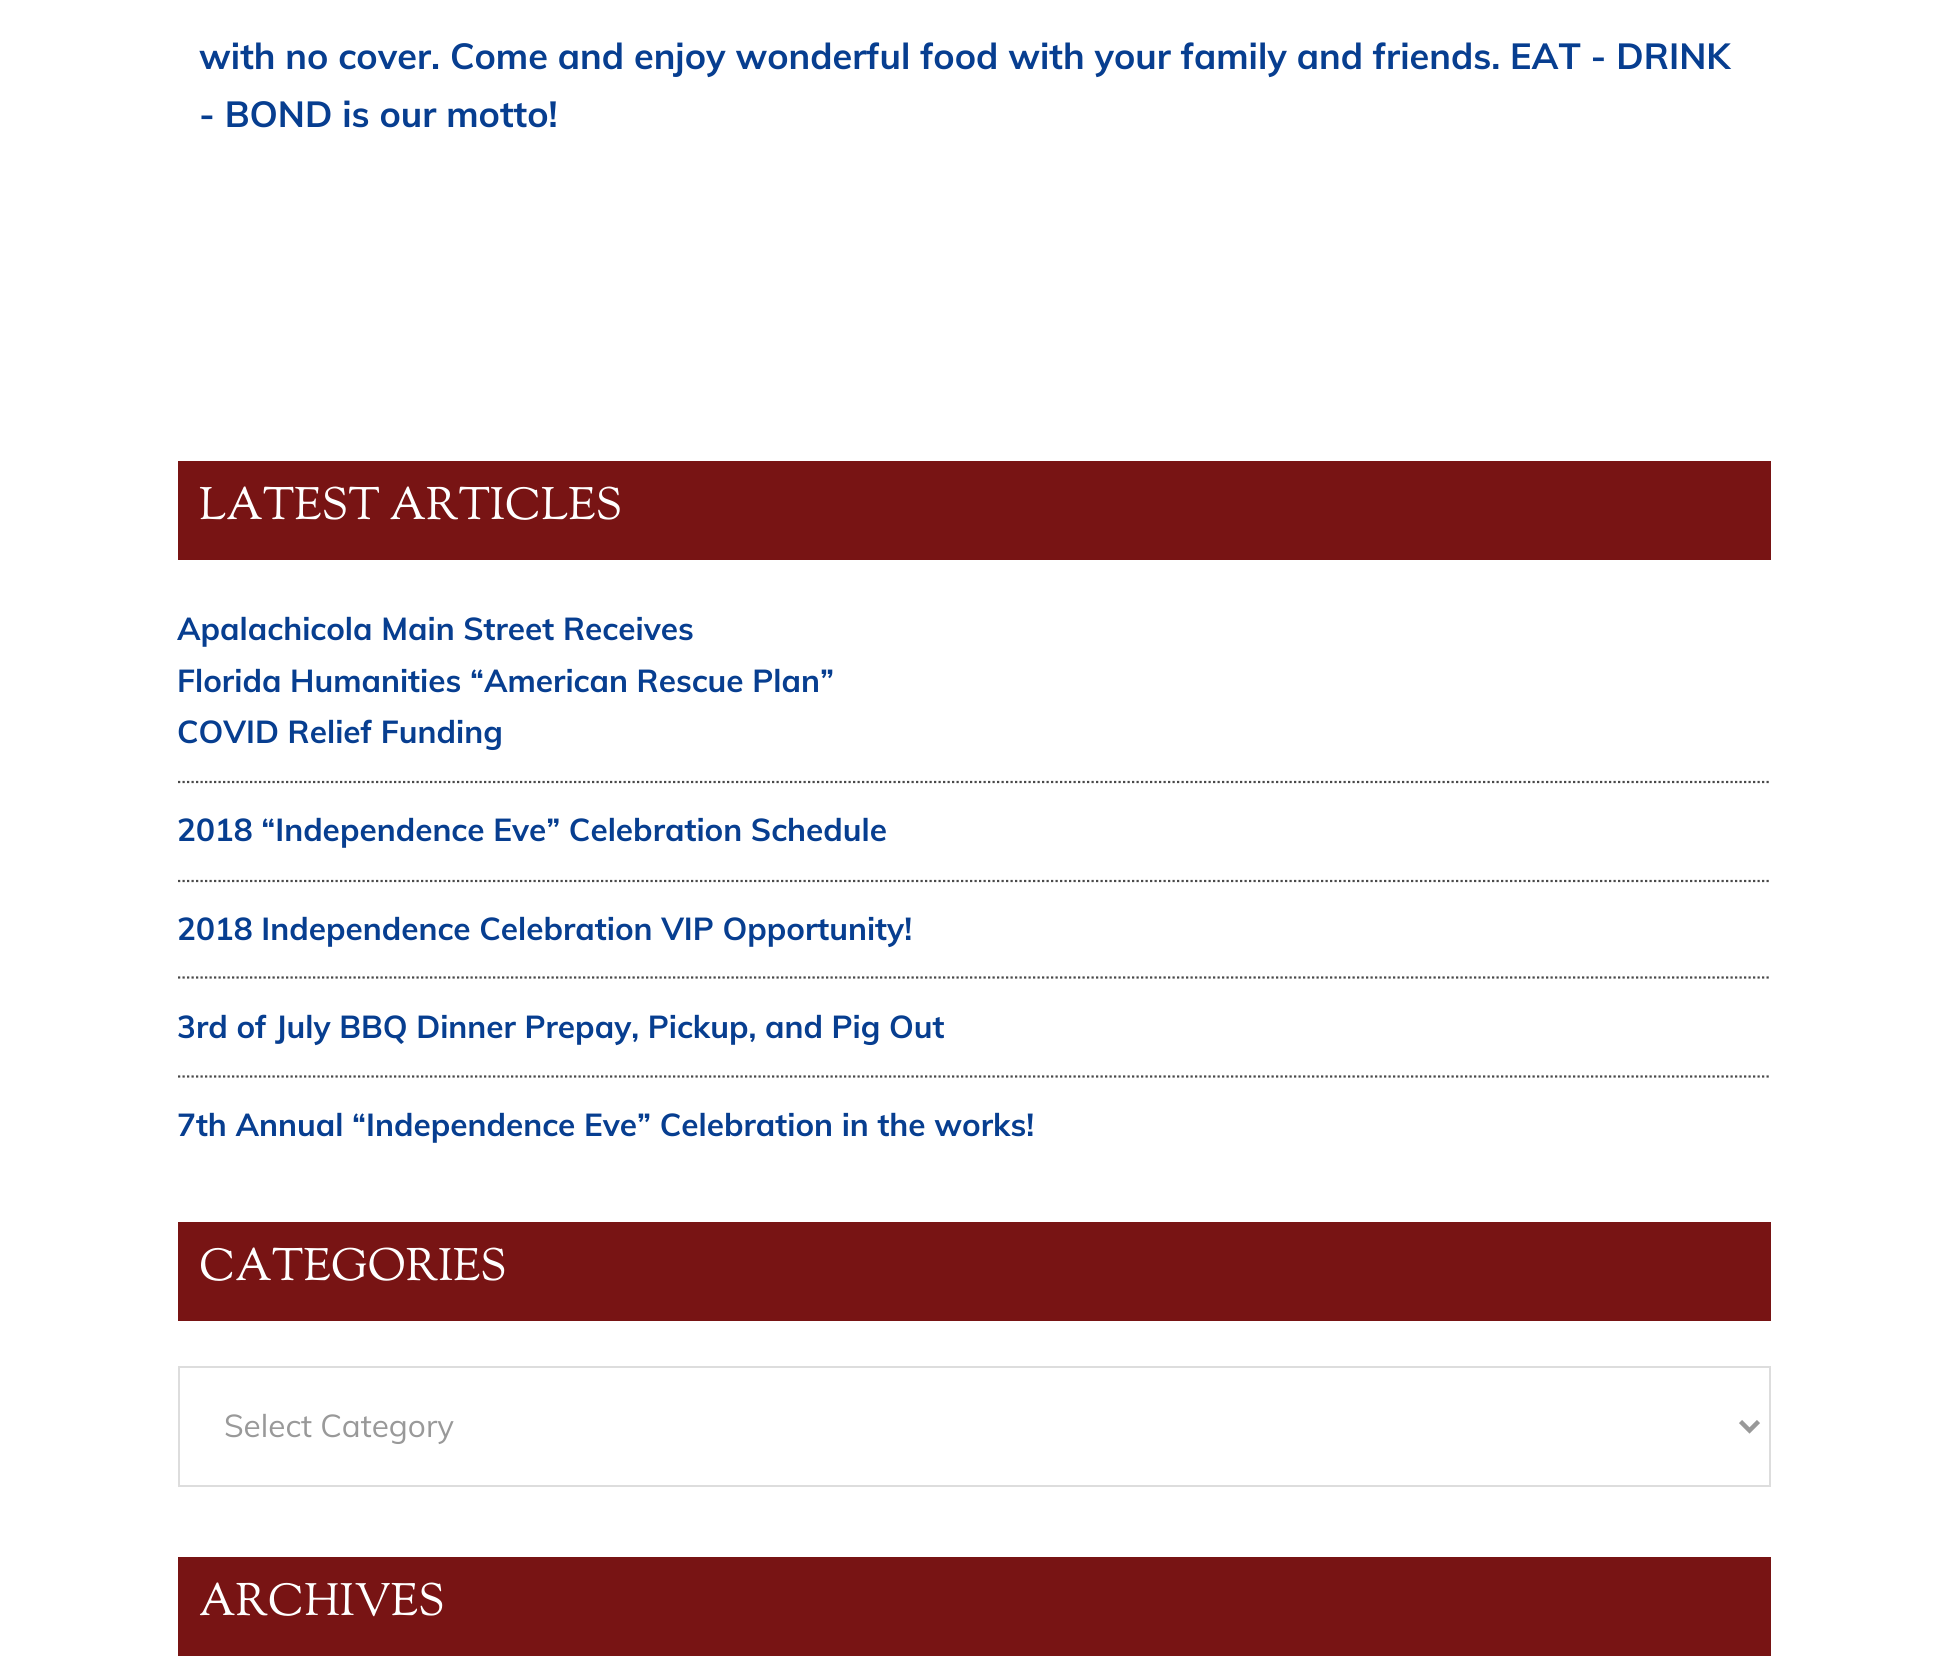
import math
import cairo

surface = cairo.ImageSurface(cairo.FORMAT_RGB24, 1945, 1672)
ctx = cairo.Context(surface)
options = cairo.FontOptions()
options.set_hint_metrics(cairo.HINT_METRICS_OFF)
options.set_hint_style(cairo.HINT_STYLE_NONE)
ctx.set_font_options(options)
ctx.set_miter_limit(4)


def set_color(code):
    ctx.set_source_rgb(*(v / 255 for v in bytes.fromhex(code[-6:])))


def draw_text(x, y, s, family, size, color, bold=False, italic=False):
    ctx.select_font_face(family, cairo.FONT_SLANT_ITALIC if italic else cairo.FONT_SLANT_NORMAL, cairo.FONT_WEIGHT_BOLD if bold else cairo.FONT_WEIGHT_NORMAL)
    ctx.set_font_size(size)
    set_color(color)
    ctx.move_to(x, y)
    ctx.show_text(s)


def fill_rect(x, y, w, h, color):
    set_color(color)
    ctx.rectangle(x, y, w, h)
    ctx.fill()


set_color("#ffffff")
ctx.paint()
draw_text(199, 69, "with no cover. Come and enjoy wonderful food with your family and friends. EAT - DRINK", "Muli", 36, "#073e90", bold=True)
draw_text(199, 127, "- BOND is our motto!", "Muli", 36, "#073e90", bold=True)
fill_rect(178, 461, 1593, 99, "#781414")
draw_text(199, 519, "LATEST ARTICLES", "Sorts Mill Goudy", 45, "#ffffff")
ctx.new_path()
ctx.move_to(178, 782)
ctx.line_to(1771, 782)
set_color("#494949")
ctx.set_line_width(2.2)
ctx.set_dash([2.25, 2.25])
ctx.stroke()
draw_text(177, 640, "Apalachicola Main Street Receives", "Muli", 31.5, "#073e90", bold=True)
draw_text(177, 692, "Florida Humanities “American Rescue Plan”", "Muli", 31.5, "#073e90", bold=True)
draw_text(177, 743, "COVID Relief Funding", "Muli", 31.5, "#073e90", bold=True)
ctx.new_path()
ctx.move_to(178, 881)
ctx.line_to(1771, 881)
set_color("#494949")
ctx.stroke()
draw_text(177, 841, "2018 “Independence Eve” Celebration Schedule", "Muli", 31.5, "#073e90", bold=True)
ctx.new_path()
ctx.move_to(178, 977.5)
ctx.line_to(1771, 977.5)
set_color("#494949")
ctx.stroke()
draw_text(177, 940, "2018 Independence Celebration VIP Opportunity!", "Muli", 31.5, "#073e90", bold=True)
ctx.new_path()
ctx.move_to(178, 1076.5)
ctx.line_to(1771, 1076.5)
set_color("#494949")
ctx.stroke()
draw_text(177, 1038, "3rd of July BBQ Dinner Prepay, Pickup, and Pig Out", "Muli", 31.5, "#073e90", bold=True)
draw_text(177, 1136, "7th Annual “Independence Eve” Celebration in the works!", "Muli", 31.5, "#073e90", bold=True)
fill_rect(178, 1222, 1593, 99, "#781414")
draw_text(199, 1280, "CATEGORIES", "Sorts Mill Goudy", 45, "#ffffff")
ctx.rectangle(179, 1367, 1591, 119)
set_color("#dddddd")
ctx.set_line_width(2)
ctx.set_dash([])
ctx.stroke()
ctx.new_path()
ctx.move_to(1740.5, 1421.5)
ctx.line_to(1749.5, 1430.5)
ctx.line_to(1758.5, 1421.5)
set_color("#999999")
ctx.set_line_width(4.5)
ctx.stroke()
draw_text(224, 1437, "Select Category", "Muli", 31.5, "#999999")
fill_rect(178, 1557, 1593, 99, "#781414")
draw_text(199, 1615, "ARCHIVES", "Sorts Mill Goudy", 45, "#ffffff")
surface.write_to_png("output.png")
